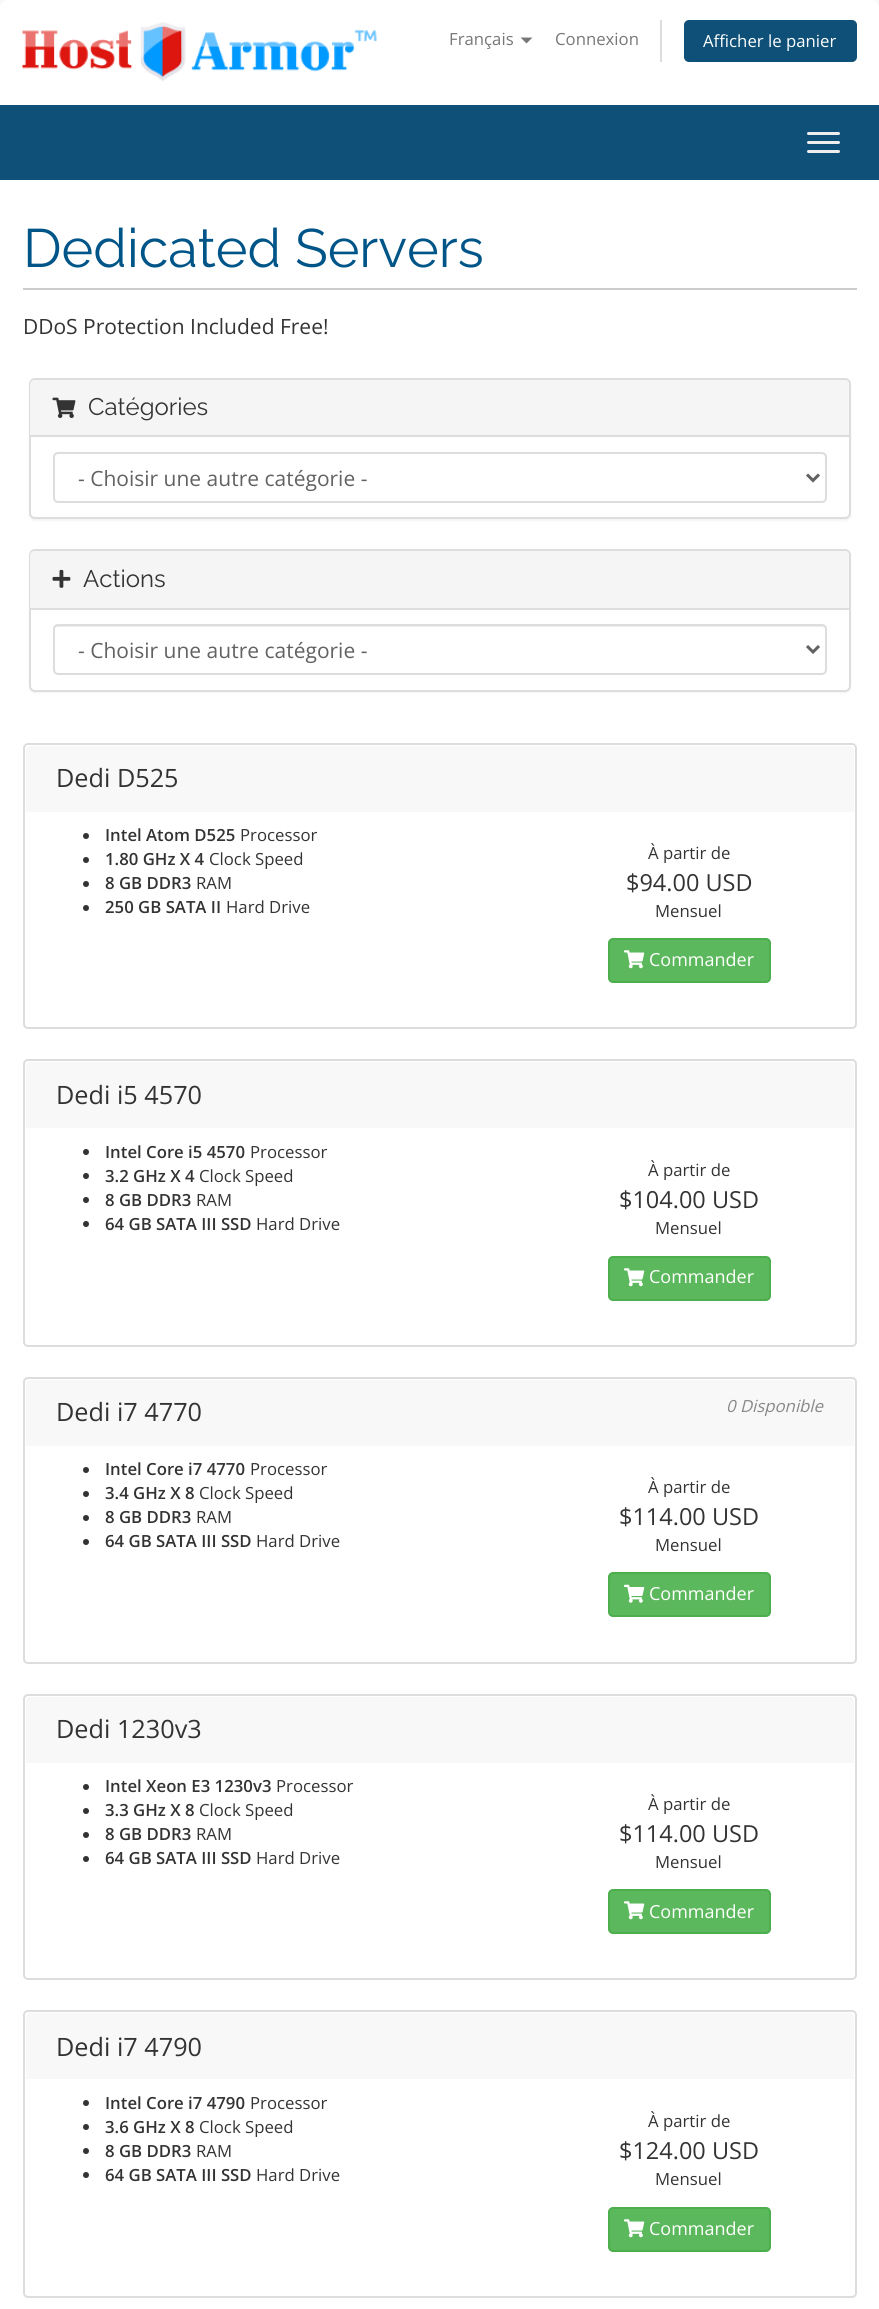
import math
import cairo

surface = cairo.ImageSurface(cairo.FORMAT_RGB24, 879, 2309)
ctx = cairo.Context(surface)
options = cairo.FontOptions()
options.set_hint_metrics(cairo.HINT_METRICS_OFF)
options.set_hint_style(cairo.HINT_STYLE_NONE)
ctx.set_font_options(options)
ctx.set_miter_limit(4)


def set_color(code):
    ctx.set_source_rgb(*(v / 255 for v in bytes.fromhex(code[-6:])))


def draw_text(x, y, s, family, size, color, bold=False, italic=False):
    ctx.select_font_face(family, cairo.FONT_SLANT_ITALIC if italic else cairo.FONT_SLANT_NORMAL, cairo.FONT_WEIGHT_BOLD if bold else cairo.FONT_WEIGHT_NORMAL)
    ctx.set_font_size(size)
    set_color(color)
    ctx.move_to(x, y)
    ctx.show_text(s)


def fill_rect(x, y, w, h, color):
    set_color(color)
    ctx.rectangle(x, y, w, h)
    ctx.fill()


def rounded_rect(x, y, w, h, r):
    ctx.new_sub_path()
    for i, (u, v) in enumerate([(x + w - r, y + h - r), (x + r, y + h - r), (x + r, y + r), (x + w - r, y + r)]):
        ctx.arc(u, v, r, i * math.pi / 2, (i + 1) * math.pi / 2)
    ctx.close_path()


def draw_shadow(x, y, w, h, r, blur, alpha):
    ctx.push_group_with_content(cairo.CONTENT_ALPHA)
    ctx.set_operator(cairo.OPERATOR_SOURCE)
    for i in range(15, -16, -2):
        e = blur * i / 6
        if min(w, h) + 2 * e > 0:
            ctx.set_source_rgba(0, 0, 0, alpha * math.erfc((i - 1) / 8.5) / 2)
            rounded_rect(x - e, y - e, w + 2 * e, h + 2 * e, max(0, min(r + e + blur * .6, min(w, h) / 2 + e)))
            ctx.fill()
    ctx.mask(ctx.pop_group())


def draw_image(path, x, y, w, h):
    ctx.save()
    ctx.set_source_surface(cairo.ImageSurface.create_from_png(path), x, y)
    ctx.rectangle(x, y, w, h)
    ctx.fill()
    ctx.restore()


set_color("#f8f8f8")
ctx.paint()
set_color("#ffffff")
ctx.new_path()
ctx.move_to(8, 0)
ctx.line_to(871, 0)
ctx.curve_to(875.5, 0, 879, 3.5, 879, 8)
ctx.line_to(879, 105)
ctx.line_to(0, 105)
ctx.line_to(0, 8)
ctx.curve_to(0, 3.5, 3.5, 0, 8, 0)
ctx.close_path()
ctx.fill()
draw_image("assets/img1.png", 22, 22, 355, 60)
draw_text(449, 45, "Français", "Open Sans", 16.75, "#777777")
ctx.new_path()
ctx.move_to(520.5, 37.5)
ctx.line_to(532.5, 37.5)
ctx.line_to(526.5, 43.5)
ctx.close_path()
ctx.fill()
draw_text(555, 45, "Connexion", "Open Sans", 16.75, "#777777")
fill_rect(660, 20, 2, 42, "#dddddd")
set_color("#0e5077")
rounded_rect(684, 20, 173, 42, 5)
ctx.fill()
draw_text(703, 47, "Afficher le panier", "Open Sans", 16.75, "#ffffff")
fill_rect(0, 105, 879, 75, "#0e5077")
set_color("#eeeeee")
rounded_rect(807, 132, 33, 3, 1.5)
ctx.fill()
rounded_rect(807, 141, 33, 3, 1.5)
ctx.fill()
rounded_rect(807, 150, 33, 3, 1.5)
ctx.fill()
fill_rect(0, 180, 879, 2129, "#ffffff")
fill_rect(23, 288, 834, 2, "#cccccc")
draw_text(23, 267, "Dedicated Servers", "Raleway", 54, "#005588")
draw_text(23, 334, "DDoS Protection Included Free!", "Open Sans", 21, "#333333")
set_color("#000000")
draw_shadow(29, 380, 822, 141, 6, 1, 0.05)
set_color("#ffffff")
rounded_rect(30, 379, 820, 139, 5)
ctx.fill_preserve()
set_color("#dddddd")
ctx.stroke()
set_color("#f5f5f5")
ctx.new_path()
ctx.move_to(35, 380)
ctx.line_to(844, 380)
ctx.curve_to(847, 380, 849, 382, 849, 385)
ctx.line_to(849, 437)
ctx.line_to(30, 437)
ctx.line_to(30, 385)
ctx.curve_to(30, 382, 32, 380, 35, 380)
ctx.close_path()
ctx.fill()
fill_rect(30, 435, 819, 2, "#dddddd")
draw_image("assets/img2.png", 52, 397, 24, 21)
draw_text(88, 415, "Catégories", "Raleway", 24, "#333333")
set_color("#ececec")
ctx.new_path()
ctx.move_to(57, 454)
ctx.line_to(822, 454)
ctx.curve_to(824, 454, 825, 456, 825, 458)
ctx.line_to(825, 456)
ctx.curve_to(825, 454, 824, 453, 822, 453)
ctx.line_to(57, 453)
ctx.curve_to(55, 453, 54, 454, 54, 456)
ctx.line_to(54, 458)
ctx.curve_to(54, 456, 55, 454, 57, 454)
ctx.close_path()
ctx.fill()
rounded_rect(54, 453, 772, 49, 4)
set_color("#dddddd")
ctx.stroke()
ctx.new_path()
ctx.move_to(807, 474.5)
ctx.line_to(813, 480.5)
ctx.line_to(819, 474.5)
set_color("#626262")
ctx.set_line_width(3)
ctx.stroke()
draw_text(78, 486, "- Choisir une autre catégorie -", "Open Sans", 21, "#626262")
set_color("#000000")
draw_shadow(29, 551, 822, 142, 6, 1, 0.05)
set_color("#ffffff")
rounded_rect(30, 550, 820, 141, 5)
ctx.fill_preserve()
set_color("#dddddd")
ctx.set_line_width(2)
ctx.stroke()
set_color("#f5f5f5")
ctx.new_path()
ctx.move_to(35, 551)
ctx.line_to(844, 551)
ctx.curve_to(847, 551, 849, 553, 849, 556)
ctx.line_to(849, 609)
ctx.line_to(30, 609)
ctx.line_to(30, 556)
ctx.curve_to(30, 553, 32, 551, 35, 551)
ctx.close_path()
ctx.fill()
fill_rect(30, 608, 819, 2, "#dddddd")
draw_image("assets/img3.png", 52, 569, 19, 19)
draw_text(83, 587, "Actions", "Raleway", 24, "#333333")
set_color("#ececec")
ctx.new_path()
ctx.move_to(57, 627)
ctx.line_to(822, 627)
ctx.curve_to(824, 627, 825, 628, 825, 630)
ctx.curve_to(825, 628, 824, 626, 822, 626)
ctx.line_to(57, 626)
ctx.curve_to(55, 626, 54, 628, 54, 630)
ctx.curve_to(54, 628, 55, 627, 57, 627)
ctx.close_path()
ctx.fill()
rounded_rect(54, 625, 772, 49, 4)
set_color("#dddddd")
ctx.stroke()
ctx.new_path()
ctx.move_to(807, 646)
ctx.line_to(813, 652)
ctx.line_to(819, 646)
set_color("#626262")
ctx.set_line_width(3)
ctx.stroke()
draw_text(78, 658, "- Choisir une autre catégorie -", "Open Sans", 21, "#626262")
rounded_rect(24, 744, 832, 284, 4)
set_color("#dddddd")
ctx.set_line_width(2)
ctx.stroke()
set_color("#f8f8f8")
ctx.new_path()
ctx.move_to(31, 746)
ctx.line_to(849, 746)
ctx.curve_to(852, 746, 854, 748, 854, 751)
ctx.line_to(854, 812)
ctx.line_to(26, 812)
ctx.line_to(26, 751)
ctx.curve_to(26, 748, 28, 746, 31, 746)
ctx.close_path()
ctx.fill()
draw_text(56, 787, "Dedi D525", "Open Sans", 25.25, "#333333")
ctx.new_path()
ctx.arc(86, 836, 3, 0, 2 * math.pi)
ctx.fill()
draw_text(105, 841, "Intel Atom D525", "Open Sans SemiBold", 16.75, "#333333")
draw_text(240, 841, "Processor", "Open Sans", 16.75, "#333333")
ctx.new_path()
ctx.arc(86, 860, 3, 0, 2 * math.pi)
ctx.fill()
draw_text(105, 865, "1.80 GHz X 4", "Open Sans SemiBold", 16.75, "#333333")
draw_text(209, 865, "Clock Speed", "Open Sans", 16.75, "#333333")
ctx.new_path()
ctx.arc(86, 884, 3, 0, 2 * math.pi)
ctx.fill()
draw_text(105, 889, "8 GB DDR3", "Open Sans SemiBold", 16.75, "#333333")
draw_text(196, 889, "RAM", "Open Sans", 16.75, "#333333")
ctx.new_path()
ctx.arc(86, 908, 3, 0, 2 * math.pi)
ctx.fill()
draw_text(105, 913, "250 GB SATA II", "Open Sans SemiBold", 16.75, "#333333")
draw_text(226, 913, "Hard Drive", "Open Sans", 16.75, "#333333")
draw_text(648, 859, "À partir de", "Open Sans", 16.75, "#333333")
draw_text(626, 891, "$94.00 USD", "Open Sans", 23.5, "#333333")
draw_text(655, 917, "Mensuel", "Open Sans", 16.75, "#333333")
set_color("#5cb85c")
rounded_rect(609, 939, 161, 43, 4)
ctx.fill_preserve()
set_color("#4cae4c")
ctx.stroke()
draw_image("assets/img4.png", 624, 950, 21, 19)
draw_text(649, 966, "Commander", "Open Sans", 18, "#ffffff")
rounded_rect(24, 1060, 832, 286, 4)
set_color("#dddddd")
ctx.stroke()
set_color("#f8f8f8")
ctx.new_path()
ctx.move_to(31, 1062)
ctx.line_to(849, 1062)
ctx.curve_to(852, 1062, 854, 1064, 854, 1067)
ctx.line_to(854, 1128)
ctx.line_to(26, 1128)
ctx.line_to(26, 1067)
ctx.curve_to(26, 1064, 28, 1062, 31, 1062)
ctx.close_path()
ctx.fill()
draw_text(56, 1104, "Dedi i5 4570", "Open Sans", 25.25, "#333333")
ctx.new_path()
ctx.arc(86, 1152, 3, 0, 2 * math.pi)
ctx.fill()
draw_text(105, 1158, "Intel Core i5 4570", "Open Sans SemiBold", 16.75, "#333333")
draw_text(250, 1158, "Processor", "Open Sans", 16.75, "#333333")
ctx.new_path()
ctx.arc(86, 1176, 3, 0, 2 * math.pi)
ctx.fill()
draw_text(105, 1182, "3.2 GHz X 4", "Open Sans SemiBold", 16.75, "#333333")
draw_text(199, 1182, "Clock Speed", "Open Sans", 16.75, "#333333")
ctx.new_path()
ctx.arc(86, 1200, 3, 0, 2 * math.pi)
ctx.fill()
draw_text(105, 1206, "8 GB DDR3", "Open Sans SemiBold", 16.75, "#333333")
draw_text(196, 1206, "RAM", "Open Sans", 16.75, "#333333")
ctx.new_path()
ctx.arc(86, 1224, 3, 0, 2 * math.pi)
ctx.fill()
draw_text(105, 1230, "64 GB SATA III SSD", "Open Sans SemiBold", 16.75, "#333333")
draw_text(256, 1230, "Hard Drive", "Open Sans", 16.75, "#333333")
draw_text(648, 1176, "À partir de", "Open Sans", 16.75, "#333333")
draw_text(619, 1208, "$104.00 USD", "Open Sans", 23.5, "#333333")
draw_text(655, 1234, "Mensuel", "Open Sans", 16.75, "#333333")
set_color("#5cb85c")
rounded_rect(609, 1257, 161, 43, 4)
ctx.fill_preserve()
set_color("#4cae4c")
ctx.stroke()
draw_image("assets/img4.png", 624, 1268, 21, 19)
draw_text(649, 1283, "Commander", "Open Sans", 18, "#ffffff")
rounded_rect(24, 1378, 832, 285, 4)
set_color("#dddddd")
ctx.stroke()
set_color("#f8f8f8")
ctx.new_path()
ctx.move_to(31, 1380)
ctx.line_to(849, 1380)
ctx.curve_to(852, 1380, 854, 1382, 854, 1385)
ctx.line_to(854, 1446)
ctx.line_to(26, 1446)
ctx.line_to(26, 1385)
ctx.curve_to(26, 1382, 28, 1380, 31, 1380)
ctx.close_path()
ctx.fill()
draw_text(56, 1421, "Dedi i7 4770", "Open Sans", 25.25, "#333333")
draw_text(726, 1412, "0 Disponible", "Open Sans", 16.75, "#888888", italic=True)
set_color("#333333")
ctx.new_path()
ctx.arc(86, 1470, 3, 0, 2 * math.pi)
ctx.fill()
draw_text(105, 1475, "Intel Core i7 4770", "Open Sans SemiBold", 16.75, "#333333")
draw_text(250, 1475, "Processor", "Open Sans", 16.75, "#333333")
ctx.new_path()
ctx.arc(86, 1494, 3, 0, 2 * math.pi)
ctx.fill()
draw_text(105, 1499, "3.4 GHz X 8", "Open Sans SemiBold", 16.75, "#333333")
draw_text(199, 1499, "Clock Speed", "Open Sans", 16.75, "#333333")
ctx.new_path()
ctx.arc(86, 1518, 3, 0, 2 * math.pi)
ctx.fill()
draw_text(105, 1523, "8 GB DDR3", "Open Sans SemiBold", 16.75, "#333333")
draw_text(196, 1523, "RAM", "Open Sans", 16.75, "#333333")
ctx.new_path()
ctx.arc(86, 1542, 3, 0, 2 * math.pi)
ctx.fill()
draw_text(105, 1547, "64 GB SATA III SSD", "Open Sans SemiBold", 16.75, "#333333")
draw_text(256, 1547, "Hard Drive", "Open Sans", 16.75, "#333333")
draw_text(648, 1493, "À partir de", "Open Sans", 16.75, "#333333")
draw_text(619, 1525, "$114.00 USD", "Open Sans", 23.5, "#333333")
draw_text(655, 1551, "Mensuel", "Open Sans", 16.75, "#333333")
set_color("#5cb85c")
rounded_rect(609, 1573, 161, 43, 4)
ctx.fill_preserve()
set_color("#4cae4c")
ctx.stroke()
draw_image("assets/img5.png", 624, 1584, 21, 19)
draw_text(649, 1600, "Commander", "Open Sans", 18, "#ffffff")
rounded_rect(24, 1695, 832, 284, 4)
set_color("#dddddd")
ctx.stroke()
set_color("#f8f8f8")
ctx.new_path()
ctx.move_to(31, 1697)
ctx.line_to(849, 1697)
ctx.curve_to(852, 1697, 854, 1699, 854, 1702)
ctx.line_to(854, 1763)
ctx.line_to(26, 1763)
ctx.line_to(26, 1702)
ctx.curve_to(26, 1699, 28, 1697, 31, 1697)
ctx.close_path()
ctx.fill()
draw_text(56, 1738, "Dedi 1230v3", "Open Sans", 25.25, "#333333")
ctx.new_path()
ctx.arc(86, 1787, 3, 0, 2 * math.pi)
ctx.fill()
draw_text(105, 1792, "Intel Xeon E3 1230v3", "Open Sans SemiBold", 16.75, "#333333")
draw_text(276, 1792, "Processor", "Open Sans", 16.75, "#333333")
ctx.new_path()
ctx.arc(86, 1811, 3, 0, 2 * math.pi)
ctx.fill()
draw_text(105, 1816, "3.3 GHz X 8", "Open Sans SemiBold", 16.75, "#333333")
draw_text(199, 1816, "Clock Speed", "Open Sans", 16.75, "#333333")
ctx.new_path()
ctx.arc(86, 1835, 3, 0, 2 * math.pi)
ctx.fill()
draw_text(105, 1840, "8 GB DDR3", "Open Sans SemiBold", 16.75, "#333333")
draw_text(196, 1840, "RAM", "Open Sans", 16.75, "#333333")
ctx.new_path()
ctx.arc(86, 1859, 3, 0, 2 * math.pi)
ctx.fill()
draw_text(105, 1864, "64 GB SATA III SSD", "Open Sans SemiBold", 16.75, "#333333")
draw_text(256, 1864, "Hard Drive", "Open Sans", 16.75, "#333333")
draw_text(648, 1810, "À partir de", "Open Sans", 16.75, "#333333")
draw_text(619, 1842, "$114.00 USD", "Open Sans", 23.5, "#333333")
draw_text(655, 1868, "Mensuel", "Open Sans", 16.75, "#333333")
set_color("#5cb85c")
rounded_rect(609, 1890, 161, 43, 4)
ctx.fill_preserve()
set_color("#4cae4c")
ctx.stroke()
draw_image("assets/img4.png", 624, 1901, 21, 19)
draw_text(649, 1918, "Commander", "Open Sans", 18, "#ffffff")
rounded_rect(24, 2011, 832, 286, 4)
set_color("#dddddd")
ctx.stroke()
set_color("#f8f8f8")
ctx.new_path()
ctx.move_to(31, 2013)
ctx.line_to(849, 2013)
ctx.curve_to(852, 2013, 854, 2015, 854, 2018)
ctx.line_to(854, 2079)
ctx.line_to(26, 2079)
ctx.line_to(26, 2018)
ctx.curve_to(26, 2015, 28, 2013, 31, 2013)
ctx.close_path()
ctx.fill()
draw_text(56, 2056, "Dedi i7 4790", "Open Sans", 25.25, "#333333")
ctx.new_path()
ctx.arc(86, 2103, 3, 0, 2 * math.pi)
ctx.fill()
draw_text(105, 2109, "Intel Core i7 4790", "Open Sans SemiBold", 16.75, "#333333")
draw_text(250, 2109, "Processor", "Open Sans", 16.75, "#333333")
ctx.new_path()
ctx.arc(86, 2127, 3, 0, 2 * math.pi)
ctx.fill()
draw_text(105, 2133, "3.6 GHz X 8", "Open Sans SemiBold", 16.75, "#333333")
draw_text(199, 2133, "Clock Speed", "Open Sans", 16.75, "#333333")
ctx.new_path()
ctx.arc(86, 2151, 3, 0, 2 * math.pi)
ctx.fill()
draw_text(105, 2157, "8 GB DDR3", "Open Sans SemiBold", 16.75, "#333333")
draw_text(196, 2157, "RAM", "Open Sans", 16.75, "#333333")
ctx.new_path()
ctx.arc(86, 2175, 3, 0, 2 * math.pi)
ctx.fill()
draw_text(105, 2181, "64 GB SATA III SSD", "Open Sans SemiBold", 16.75, "#333333")
draw_text(256, 2181, "Hard Drive", "Open Sans", 16.75, "#333333")
draw_text(648, 2127, "À partir de", "Open Sans", 16.75, "#333333")
draw_text(619, 2159, "$124.00 USD", "Open Sans", 23.5, "#333333")
draw_text(655, 2185, "Mensuel", "Open Sans", 16.75, "#333333")
set_color("#5cb85c")
rounded_rect(609, 2208, 161, 43, 4)
ctx.fill_preserve()
set_color("#4cae4c")
ctx.stroke()
draw_image("assets/img4.png", 624, 2219, 21, 19)
draw_text(649, 2235, "Commander", "Open Sans", 18, "#ffffff")
surface.write_to_png("output.png")
